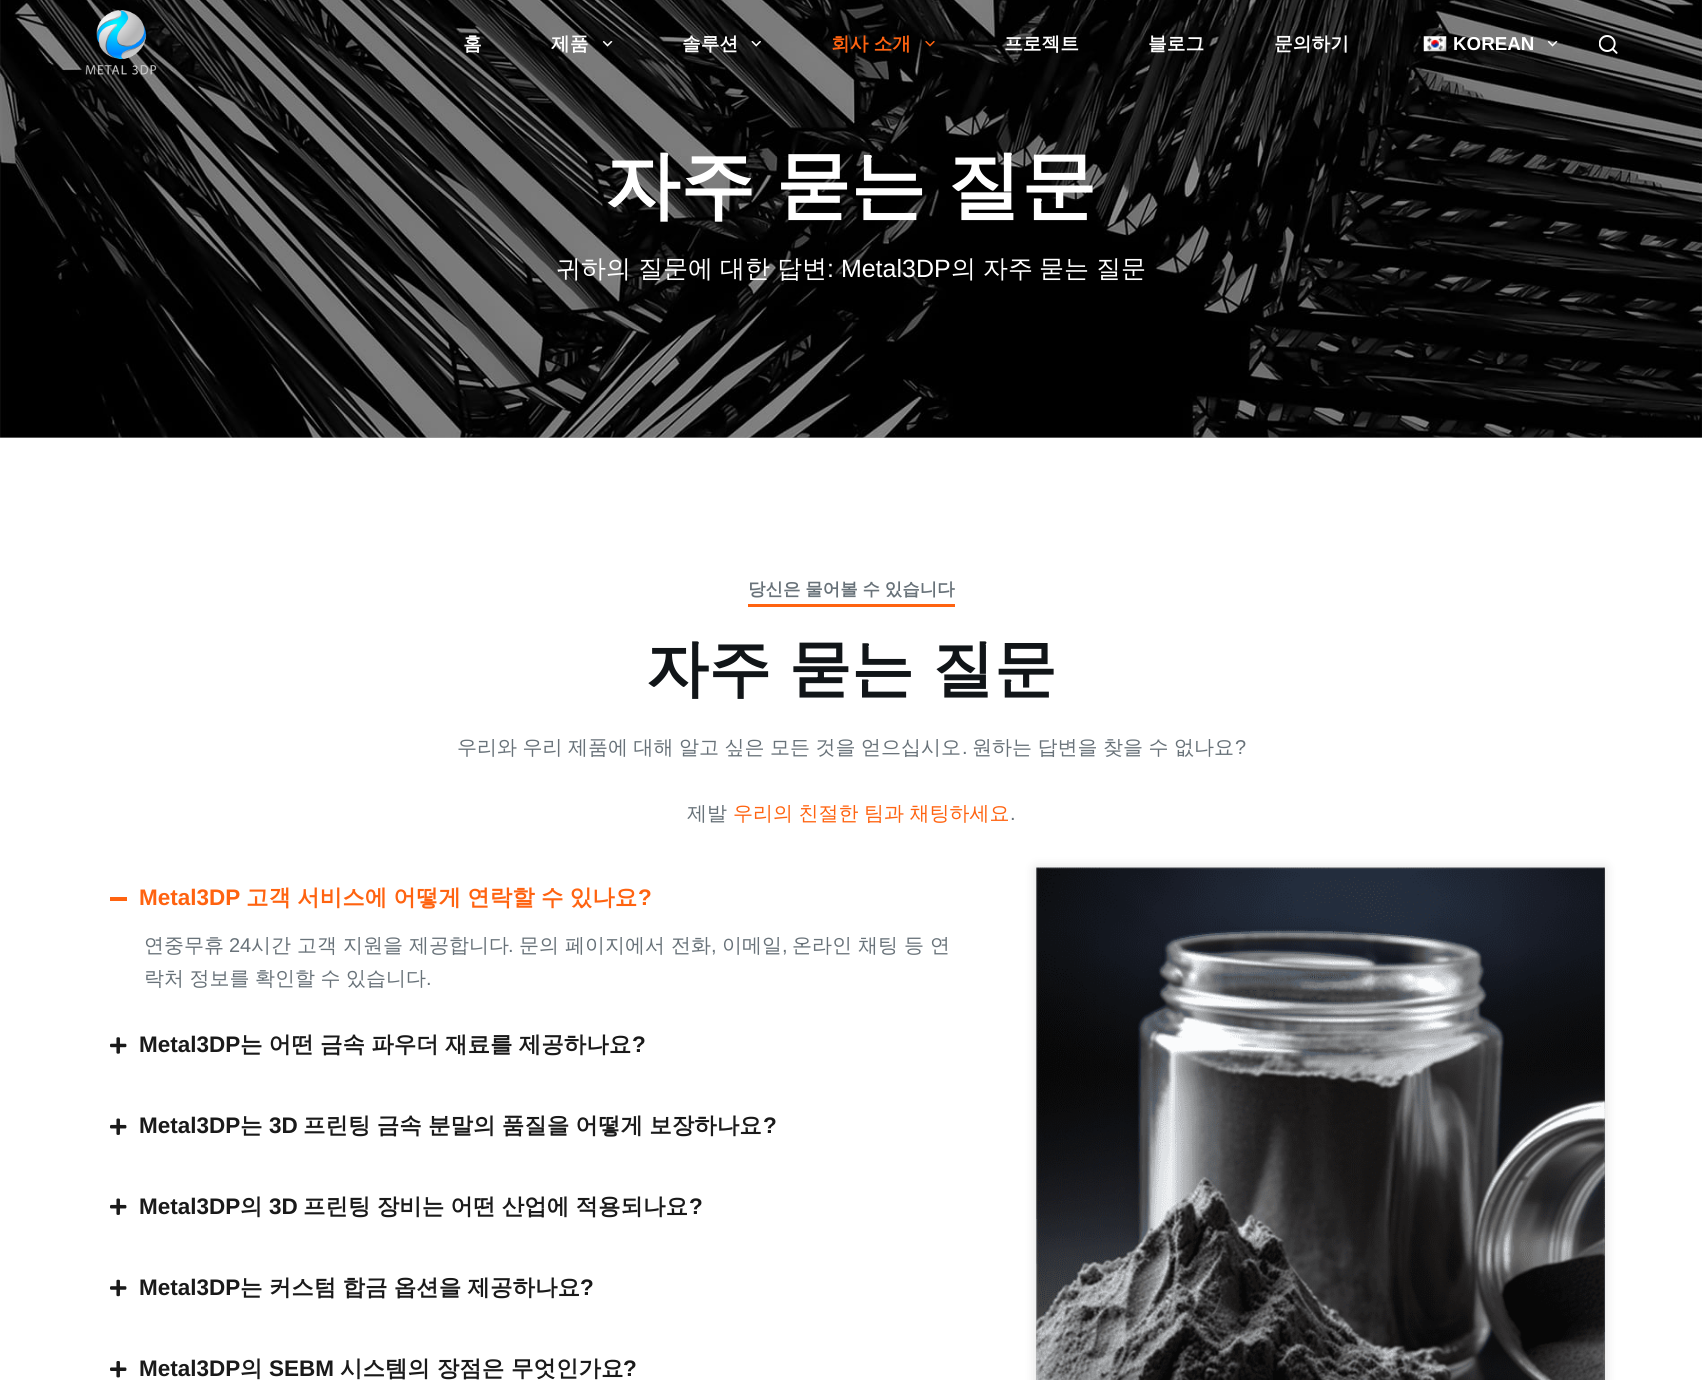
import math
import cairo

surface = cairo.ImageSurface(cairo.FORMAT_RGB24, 1702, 1380)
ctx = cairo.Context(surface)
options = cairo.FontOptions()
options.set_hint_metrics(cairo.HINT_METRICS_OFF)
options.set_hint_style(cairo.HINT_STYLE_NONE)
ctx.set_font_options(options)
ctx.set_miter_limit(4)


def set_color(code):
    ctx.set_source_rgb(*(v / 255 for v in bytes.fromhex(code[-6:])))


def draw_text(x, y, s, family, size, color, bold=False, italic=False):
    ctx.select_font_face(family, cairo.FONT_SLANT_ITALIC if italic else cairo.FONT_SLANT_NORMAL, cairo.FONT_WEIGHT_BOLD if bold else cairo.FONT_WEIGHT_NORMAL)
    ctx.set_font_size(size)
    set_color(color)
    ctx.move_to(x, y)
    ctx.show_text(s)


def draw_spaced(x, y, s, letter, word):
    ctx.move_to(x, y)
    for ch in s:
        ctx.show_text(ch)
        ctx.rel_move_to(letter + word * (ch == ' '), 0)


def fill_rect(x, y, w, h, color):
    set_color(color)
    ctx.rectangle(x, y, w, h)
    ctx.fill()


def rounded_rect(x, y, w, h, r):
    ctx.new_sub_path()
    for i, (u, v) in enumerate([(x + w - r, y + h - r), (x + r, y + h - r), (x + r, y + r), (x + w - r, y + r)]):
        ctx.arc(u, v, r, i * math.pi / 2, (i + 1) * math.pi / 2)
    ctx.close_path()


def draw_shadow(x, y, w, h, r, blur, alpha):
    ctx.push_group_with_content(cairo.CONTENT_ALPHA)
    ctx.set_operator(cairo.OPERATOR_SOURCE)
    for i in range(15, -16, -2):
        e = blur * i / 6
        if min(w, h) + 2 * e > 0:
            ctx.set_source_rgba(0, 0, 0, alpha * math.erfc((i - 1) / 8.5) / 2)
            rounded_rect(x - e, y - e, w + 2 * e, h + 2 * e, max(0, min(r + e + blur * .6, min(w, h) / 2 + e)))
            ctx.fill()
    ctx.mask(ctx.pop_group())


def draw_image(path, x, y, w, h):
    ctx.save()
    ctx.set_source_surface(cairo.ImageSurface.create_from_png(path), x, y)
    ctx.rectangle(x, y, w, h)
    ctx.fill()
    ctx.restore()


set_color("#ffffff")
ctx.paint()
fill_rect(0, 437, 1702, 1, "#b0b0b0")
draw_image("assets/img8.png", 0, 0, 1702, 438)
draw_image("assets/img1.png", 85, 10, 72, 65)
draw_text(463, 50, "홈", "WenQuanYi Zen Hei", 18.75, "#ffffff", bold=True)
draw_text(551, 50, "제품", "WenQuanYi Zen Hei", 18.75, "#ffffff", bold=True)
draw_image("assets/img2.png", 603, 41, 10, 6)
draw_text(682, 50, "솔루션", "WenQuanYi Zen Hei", 18.75, "#ffffff", bold=True)
draw_image("assets/img3.png", 751, 41, 10, 6)
set_color("#ff6310")
draw_spaced(831, 50, "회사 소개", 0, -0.5)
draw_image("assets/img4.png", 925, 41, 10, 6)
draw_text(1004, 50, "프로젝트", "WenQuanYi Zen Hei", 18.75, "#ffffff", bold=True)
draw_text(1148, 50, "블로그", "WenQuanYi Zen Hei", 18.75, "#ffffff", bold=True)
draw_text(1274, 50, "문의하기", "WenQuanYi Zen Hei", 18.75, "#ffffff", bold=True)
draw_image("assets/img5.png", 1423, 36, 24, 16)
draw_text(1453, 50, "KOREAN", "Liberation Sans", 18.75, "#ffffff", bold=True)
draw_image("assets/img6.png", 1548, 41, 10, 6)
draw_image("assets/img7.png", 1599, 35, 19, 19)
ctx.select_font_face("WenQuanYi Zen Hei", cairo.FONT_SLANT_NORMAL, cairo.FONT_WEIGHT_BOLD)
ctx.set_font_size(75)
draw_spaced(605, 211, "자주 묻는 질문", 0, -2)
draw_text(556, 277, "귀하의", "WenQuanYi Zen Hei Medium", 25, "#ffffff")
draw_text(638, 277, "질문에", "WenQuanYi Zen Hei Medium", 25, "#ffffff")
draw_text(720, 277, "대한", "WenQuanYi Zen Hei Medium", 25, "#ffffff")
draw_text(777, 277, "답변", "WenQuanYi Zen Hei Medium", 25, "#ffffff")
draw_text(827, 277, ": Metal3DP", "Liberation Sans", 25, "#ffffff")
draw_text(951, 277, "의", "WenQuanYi Zen Hei Medium", 25, "#ffffff")
draw_text(983, 277, "자주", "WenQuanYi Zen Hei Medium", 25, "#ffffff")
draw_text(1039, 277, "묻는", "WenQuanYi Zen Hei Medium", 25, "#ffffff")
draw_text(1096, 277, "질문", "WenQuanYi Zen Hei Medium", 25, "#ffffff")
fill_rect(748, 604, 207, 3, "#ff6310")
ctx.select_font_face("WenQuanYi Zen Hei", cairo.FONT_SLANT_NORMAL, cairo.FONT_WEIGHT_BOLD)
ctx.set_font_size(17.5)
set_color("#687279")
draw_spaced(748, 595, "당신은 물어볼 수 있습니다", 0, -0.5)
ctx.set_font_size(62.5)
set_color("#111518")
draw_spaced(646, 690, "자주 묻는 질문", 0, -1)
ctx.select_font_face("WenQuanYi Zen Hei Medium")
ctx.set_font_size(20)
set_color("#687279")
draw_spaced(457, 754, "우리와 우리 제품에 대해 알고 싶은 모든 것을 얻으십시오", 0, -0.5)
draw_text(962, 754, ".", "Liberation Sans", 20, "#687279")
ctx.select_font_face("WenQuanYi Zen Hei Medium")
draw_spaced(972, 754, "원하는 답변을 찾을 수 없나요", 0, -0.5)
draw_text(1235, 754, "?", "Liberation Sans", 20, "#687279")
draw_text(687, 820, "제발", "WenQuanYi Zen Hei Medium", 20, "#687279")
set_color("#ff6310")
draw_spaced(733, 820, "우리의 친절한 팀과 채팅하세요", 0, -0.5)
draw_text(1010, 820, ".", "Liberation Sans", 20, "#687279")
fill_rect(110, 897, 17, 4, "#ff6310")
draw_text(139, 905, "Metal3DP", "Liberation Sans", 22.5, "#ff6310", bold=True)
ctx.select_font_face("WenQuanYi Zen Hei", cairo.FONT_SLANT_NORMAL, cairo.FONT_WEIGHT_BOLD)
draw_spaced(246, 905, "고객 서비스에 어떻게 연락할 수 있나요", 0, -0.5)
draw_text(638, 905, "?", "Liberation Sans", 22.5, "#ff6310", bold=True)
draw_text(144, 952, "연중무휴", "WenQuanYi Zen Hei Medium", 20, "#687279")
draw_text(229, 952, "24", "Liberation Sans", 20, "#687279")
draw_text(251, 952, "시간 고객 지원을 제공합니다", "WenQuanYi Zen Hei Medium", 20, "#687279")
draw_text(508, 952, ".", "Liberation Sans", 20, "#687279")
draw_text(519, 952, "문의 페이지에서 전화", "WenQuanYi Zen Hei Medium", 20, "#687279")
draw_text(711, 952, ",", "Liberation Sans", 20, "#687279")
draw_text(722, 952, "이메일", "WenQuanYi Zen Hei Medium", 20, "#687279")
draw_text(782, 952, ",", "Liberation Sans", 20, "#687279")
draw_text(792, 952, "온라인 채팅 등 연", "WenQuanYi Zen Hei Medium", 20, "#687279")
draw_spaced(144, 985, "락처 정보를 확인할 수 있습니다", 0, -0.5)
draw_text(426, 985, ".", "Liberation Sans", 20, "#687279")
draw_image("assets/img9.png", 110, 1037, 17, 17)
draw_text(139, 1052, "Metal3DP", "Liberation Sans", 22.5, "#1a1a1a", bold=True)
ctx.select_font_face("WenQuanYi Zen Hei", cairo.FONT_SLANT_NORMAL, cairo.FONT_WEIGHT_BOLD)
draw_spaced(240, 1052, "는 어떤 금속 파우더 재료를 제공하나요", 0, -0.5)
draw_text(632, 1052, "?", "Liberation Sans", 22.5, "#1a1a1a", bold=True)
draw_image("assets/img10.png", 110, 1118, 17, 17)
draw_text(139, 1133, "Metal3DP", "Liberation Sans", 22.5, "#1a1a1a", bold=True)
draw_text(240, 1133, "는", "WenQuanYi Zen Hei", 22.5, "#1a1a1a", bold=True)
draw_text(269, 1133, "3D", "Liberation Sans", 22.5, "#1a1a1a", bold=True)
ctx.select_font_face("WenQuanYi Zen Hei", cairo.FONT_SLANT_NORMAL, cairo.FONT_WEIGHT_BOLD)
draw_spaced(303, 1133, "프린팅 금속 분말의 품질을 어떻게 보장하나요", 0, -0.5)
draw_text(763, 1133, "?", "Liberation Sans", 22.5, "#1a1a1a", bold=True)
draw_image("assets/img10.png", 110, 1198, 17, 17)
draw_text(139, 1214, "Metal3DP", "Liberation Sans", 22.5, "#1a1a1a", bold=True)
draw_text(240, 1214, "의", "WenQuanYi Zen Hei", 22.5, "#1a1a1a", bold=True)
draw_text(269, 1214, "3D", "Liberation Sans", 22.5, "#1a1a1a", bold=True)
ctx.select_font_face("WenQuanYi Zen Hei", cairo.FONT_SLANT_NORMAL, cairo.FONT_WEIGHT_BOLD)
draw_spaced(303, 1214, "프린팅 장비는 어떤 산업에 적용되나요", 0, -0.5)
draw_text(689, 1214, "?", "Liberation Sans", 22.5, "#1a1a1a", bold=True)
draw_image("assets/img11.png", 110, 1279, 17, 18)
draw_text(139, 1295, "Metal3DP", "Liberation Sans", 22.5, "#1a1a1a", bold=True)
ctx.select_font_face("WenQuanYi Zen Hei", cairo.FONT_SLANT_NORMAL, cairo.FONT_WEIGHT_BOLD)
draw_spaced(240, 1295, "는 커스텀 합금 옵션을 제공하나요", 0, -0.5)
draw_text(580, 1295, "?", "Liberation Sans", 22.5, "#1a1a1a", bold=True)
draw_image("assets/img12.png", 110, 1361, 17, 17)
draw_text(139, 1376, "Metal3DP", "Liberation Sans", 22.5, "#1a1a1a", bold=True)
draw_text(240, 1376, "의", "WenQuanYi Zen Hei", 22.5, "#1a1a1a", bold=True)
draw_text(269, 1376, "SEBM", "Liberation Sans", 22.5, "#1a1a1a", bold=True)
draw_text(340, 1376, "시스템의 장점은 무엇인가요", "WenQuanYi Zen Hei", 22.5, "#1a1a1a", bold=True)
draw_text(623, 1376, "?", "Liberation Sans", 22.5, "#1a1a1a", bold=True)
set_color("#c0c0c0")
draw_shadow(1036, 868, 569, 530, 0, 6, 0.5)
draw_image("assets/img13.png", 1036, 867, 569, 513)
surface.write_to_png("output.png")
